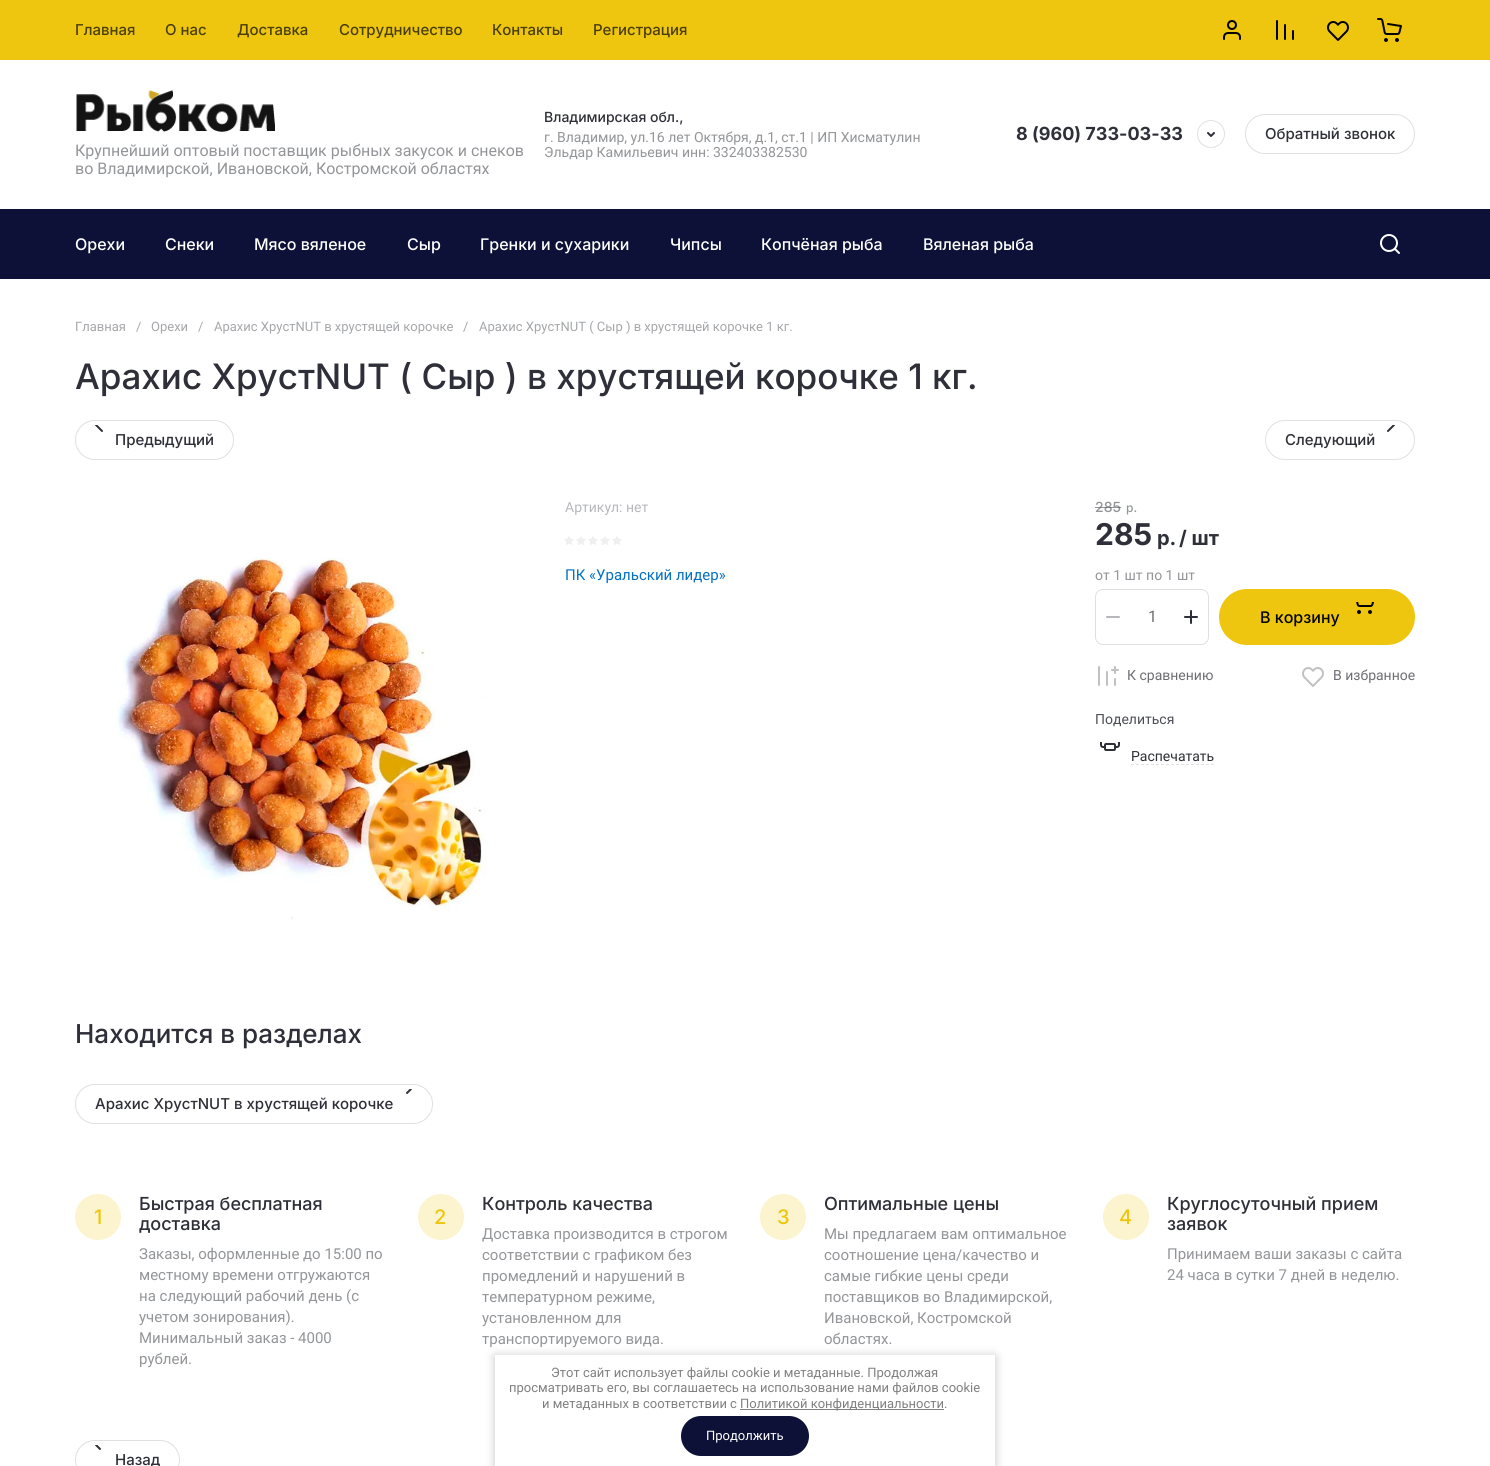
import math
import cairo

surface = cairo.ImageSurface(cairo.FORMAT_RGB24, 1490, 1466)
ctx = cairo.Context(surface)
options = cairo.FontOptions()
options.set_hint_metrics(cairo.HINT_METRICS_OFF)
options.set_hint_style(cairo.HINT_STYLE_NONE)
ctx.set_font_options(options)
ctx.set_miter_limit(4)


def set_color(code):
    ctx.set_source_rgb(*(v / 255 for v in bytes.fromhex(code[-6:])))


def draw_text(x, y, s, family, size, color, bold=False, italic=False):
    ctx.select_font_face(family, cairo.FONT_SLANT_ITALIC if italic else cairo.FONT_SLANT_NORMAL, cairo.FONT_WEIGHT_BOLD if bold else cairo.FONT_WEIGHT_NORMAL)
    ctx.set_font_size(size)
    set_color(color)
    ctx.move_to(x, y)
    ctx.show_text(s)


def fill_rect(x, y, w, h, color):
    set_color(color)
    ctx.rectangle(x, y, w, h)
    ctx.fill()


def rounded_rect(x, y, w, h, r):
    ctx.new_sub_path()
    for i, (u, v) in enumerate([(x + w - r, y + h - r), (x + r, y + h - r), (x + r, y + r), (x + w - r, y + r)]):
        ctx.arc(u, v, r, i * math.pi / 2, (i + 1) * math.pi / 2)
    ctx.close_path()


def draw_shadow(x, y, w, h, r, blur, alpha):
    ctx.push_group_with_content(cairo.CONTENT_ALPHA)
    ctx.set_operator(cairo.OPERATOR_SOURCE)
    for i in range(15, -16, -2):
        e = blur * i / 6
        if min(w, h) + 2 * e > 0:
            ctx.set_source_rgba(0, 0, 0, alpha * math.erfc((i - 1) / 8.5) / 2)
            rounded_rect(x - e, y - e, w + 2 * e, h + 2 * e, max(0, min(r + e + blur * .6, min(w, h) / 2 + e)))
            ctx.fill()
    ctx.mask(ctx.pop_group())


def draw_image(path, x, y, w, h):
    ctx.save()
    ctx.set_source_surface(cairo.ImageSurface.create_from_png(path), x, y)
    ctx.rectangle(x, y, w, h)
    ctx.fill()
    ctx.restore()


set_color("#ffffff")
ctx.paint()
fill_rect(0, 0, 1490, 60, "#eec60f")
draw_text(75, 35, "Главная", "Inter Medium", 15, "#4a3e07")
draw_text(165, 35, "О нас", "Inter Medium", 15, "#4a3e07")
draw_text(237, 35, "Доставка", "Inter Medium", 15, "#4a3e07")
draw_text(339, 35, "Сотрудничество", "Inter Medium", 15, "#4a3e07")
draw_text(492, 35, "Контакты", "Inter Medium", 15, "#4a3e07")
draw_text(593, 35, "Регистрация", "Inter Medium", 15, "#4a3e07")
draw_image("assets/img1.png", 1223, 20, 18, 20)
draw_image("assets/img2.png", 1276, 20, 18, 20)
draw_image("assets/img3.png", 1327, 21, 22, 20)
draw_image("assets/img4.png", 1377, 18, 25, 24)
draw_text(544, 122, "Владимирская обл.,", "Inter Medium", 14, "#2e2f38")
draw_text(544, 142, "г. Владимир, ул.16 лет Октября, д.1, ст.1 | ИП Хисматулин", "Roboto", 14, "#939598")
draw_text(544, 157, "Эльдар Камильевич инн: 332403382530", "Roboto", 14, "#939598")
draw_text(1016, 140, "8 (960) 733-03-33", "Inter", 18, "#2e2f38", bold=True)
ctx.new_path()
ctx.arc(1211, 134, 13.5, 0, 2 * math.pi)
set_color("#e0e0e0")
ctx.set_line_width(1)
ctx.stroke()
draw_image("assets/img5.png", 1207, 132, 8, 5)
rounded_rect(1245.5, 114.5, 169, 39, 19.5)
ctx.stroke()
draw_text(1265, 139, "Обратный звонок", "Inter Medium", 15, "#2e2f38")
draw_image("assets/img6.png", 76, 90, 199, 42)
draw_text(75, 156, "Крупнейший оптовый поставщик рыбных закусок и снеков", "Roboto", 16, "#939598")
draw_text(75, 174, "во Владимирской, Ивановской, Костромской областях", "Roboto", 16, "#939598")
fill_rect(0, 209, 1490, 70, "#0d1137")
draw_text(75, 250, "Орехи", "Inter Medium", 16, "#ffffff")
draw_text(165, 250, "Снеки", "Inter Medium", 16, "#ffffff")
draw_text(254, 250, "Мясо вяленое", "Inter Medium", 16, "#ffffff")
draw_text(407, 250, "Сыр", "Inter Medium", 16, "#ffffff")
draw_text(480, 250, "Гренки и сухарики", "Inter Medium", 16, "#ffffff")
draw_text(670, 250, "Чипсы", "Inter Medium", 16, "#ffffff")
draw_text(761, 250, "Копчёная рыба", "Inter Medium", 16, "#ffffff")
draw_text(923, 250, "Вяленая рыба", "Inter Medium", 16, "#ffffff")
draw_image("assets/img7.png", 1380, 234, 20, 20)
draw_text(75, 331, "Главная", "Roboto", 13, "#a5a7aa")
draw_text(136, 331, "/", "Roboto", 13, "#a5a7aa")
draw_text(151, 331, "Орехи", "Roboto", 13, "#a5a7aa")
draw_text(198, 331, "/", "Roboto", 13, "#a5a7aa")
draw_text(214, 331, "Арахис ХрустNUT в хрустящей корочке", "Roboto", 13, "#a5a7aa")
draw_text(463, 331, "/", "Roboto", 13, "#a5a7aa")
draw_text(479, 331, "Арахис ХрустNUT ( Сыр ) в хрустящей корочке 1 кг.", "Roboto", 13, "#a5a7aa")
draw_text(75, 389, "Арахис ХрустNUT ( Сыр ) в хрустящей корочке 1 кг.", "Inter Medium", 35, "#2e2f38")
rounded_rect(75.5, 420.5, 158, 39, 19.5)
set_color("#e0e0e0")
ctx.stroke()
draw_image("assets/img8.png", 95, 425, 8, 7)
draw_text(115, 445, "Предыдущий", "Inter Medium", 15, "#2e2f38")
rounded_rect(1265.5, 420.5, 149, 39, 19.5)
set_color("#e0e0e0")
ctx.stroke()
draw_image("assets/img9.png", 1387, 425, 8, 7)
draw_text(1285, 445, "Следующий", "Inter Medium", 15, "#2e2f38")
draw_image("assets/img10.png", 116, 557, 370, 363)
draw_text(565, 512, "Артикул: нет", "Roboto", 14, "#b7b8bb")
draw_image("assets/img11.png", 564, 536, 58, 9)
draw_text(565, 580, "ПК «Уральский лидер»", "Roboto", 15, "#0470c4")
draw_text(1095, 512, "285", "Inter Medium", 14, "#939598")
ctx.set_source_rgba(0.294, 0.306, 0.329, 0.6)
ctx.rectangle(1095, 507, 26, 1)
ctx.fill()
draw_text(1126, 512, "р.", "Inter Medium", 12, "#939598")
draw_text(1095, 545, "285", "Inter", 30, "#2e2f38", bold=True)
draw_text(1157, 545, "р.", "Inter", 20, "#2e2f38", bold=True)
draw_text(1179, 545, "/ шт", "Inter", 20, "#2e2f38", bold=True)
draw_text(1095, 580, "от 1 шт по 1 шт", "Roboto", 14, "#939598")
rounded_rect(1095.5, 589.5, 113, 55, 7.5)
set_color("#e0e0e0")
ctx.stroke()
draw_image("assets/img12.png", 1106, 616, 14, 2)
draw_text(1148, 622, "1", "Roboto", 16, "#6d6d74")
draw_image("assets/img13.png", 1184, 610, 14, 14)
set_color("#eec60f")
rounded_rect(1219, 589, 196, 56, 28)
ctx.fill()
draw_image("assets/img14.png", 1356, 602, 18, 12)
draw_text(1260, 623, "В корзину", "Inter Medium", 16, "#030303")
draw_image("assets/img15.png", 1098, 666, 21, 20)
draw_text(1127, 680, "К сравнению", "Roboto", 14, "#6d6d74")
draw_image("assets/img16.png", 1302, 667, 22, 20)
draw_text(1333, 680, "В избранное", "Roboto", 14, "#6d6d74")
draw_text(1095, 724, "Поделиться", "Roboto", 14, "#4b4e54")
draw_image("assets/img17.png", 1100, 742, 20, 9)
draw_text(1131, 761, "Распечатать", "Roboto", 14, "#2e2f38")
ctx.new_path()
ctx.move_to(1131, 764.5)
ctx.line_to(1214, 764.5)
set_color("#e0e0e0")
ctx.set_dash([3, 2])
ctx.stroke()
draw_text(75, 1043, "Находится в разделах", "Inter Medium", 26, "#2e2f38")
rounded_rect(75.5, 1084.5, 357, 39, 19.5)
set_color("#e0e0e0")
ctx.set_dash([])
ctx.stroke()
draw_image("assets/img18.png", 406, 1089, 6, 5)
draw_text(95, 1109, "Арахис ХрустNUT в хрустящей корочке", "Inter Medium", 15, "#2e2f38")
set_color("#fcf4cf")
ctx.new_path()
ctx.arc(98, 1217, 23, 0, 2 * math.pi)
ctx.fill()
draw_text(94, 1224, "1", "Inter Medium", 20, "#eec60f")
draw_text(139, 1210, "Быстрая бесплатная", "Inter Medium", 18, "#2e2f38")
draw_text(139, 1230, "доставка", "Inter Medium", 18, "#2e2f38")
draw_text(139, 1259, "Заказы, оформленные до 15:00 по", "Roboto", 15, "#939598")
draw_text(139, 1280, "местному времени отгружаются", "Roboto", 15, "#939598")
draw_text(139, 1301, "на следующий рабочий день (с", "Roboto", 15, "#939598")
draw_text(139, 1322, "учетом зонирования).", "Roboto", 15, "#939598")
draw_text(139, 1343, "Минимальный заказ - 4000", "Roboto", 15, "#939598")
draw_text(139, 1364, "рублей.", "Roboto", 15, "#939598")
set_color("#fcf4cf")
ctx.new_path()
ctx.arc(441, 1217, 23, 0, 2 * math.pi)
ctx.fill()
draw_text(434, 1224, "2", "Inter Medium", 20, "#eec60f")
draw_text(482, 1210, "Контроль качества", "Inter Medium", 18, "#2e2f38")
draw_text(482, 1239, "Доставка производится в строгом", "Roboto", 15, "#939598")
draw_text(482, 1260, "соответствии с графиком без", "Roboto", 15, "#939598")
draw_text(482, 1281, "промедлений и нарушений в", "Roboto", 15, "#939598")
draw_text(482, 1302, "температурном режиме,", "Roboto", 15, "#939598")
draw_text(482, 1323, "установленном для", "Roboto", 15, "#939598")
draw_text(482, 1344, "транспортируемого вида.", "Roboto", 15, "#939598")
set_color("#fcf4cf")
ctx.new_path()
ctx.arc(783, 1217, 23, 0, 2 * math.pi)
ctx.fill()
draw_text(777, 1224, "3", "Inter Medium", 20, "#eec60f")
draw_text(824, 1210, "Оптимальные цены", "Inter Medium", 18, "#2e2f38")
draw_text(824, 1239, "Мы предлагаем вам оптимальное", "Roboto", 15, "#939598")
draw_text(824, 1260, "соотношение цена/качество и", "Roboto", 15, "#939598")
draw_text(824, 1281, "самые гибкие цены среди", "Roboto", 15, "#939598")
draw_text(824, 1302, "поставщиков во Владимирской,", "Roboto", 15, "#939598")
draw_text(824, 1323, "Ивановской, Костромской", "Roboto", 15, "#939598")
draw_text(824, 1344, "областях.", "Roboto", 15, "#939598")
set_color("#fcf4cf")
ctx.new_path()
ctx.arc(1126, 1217, 23, 0, 2 * math.pi)
ctx.fill()
draw_text(1119, 1224, "4", "Inter Medium", 20, "#eec60f")
draw_text(1167, 1210, "Круглосуточный прием", "Inter Medium", 18, "#2e2f38")
draw_text(1167, 1230, "заявок", "Inter Medium", 18, "#2e2f38")
draw_text(1167, 1259, "Принимаем ваши заказы с сайта", "Roboto", 15, "#939598")
draw_text(1167, 1280, "24 часа в сутки 7 дней в неделю.", "Roboto", 15, "#939598")
rounded_rect(75.5, 1440.5, 104, 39, 19.5)
set_color("#e0e0e0")
ctx.stroke()
draw_image("assets/img19.png", 95, 1445, 6, 5)
draw_text(115, 1465, "Назад", "Inter Medium", 15, "#2e2f38")
ctx.save()
ctx.set_fill_rule(cairo.FILL_RULE_EVEN_ODD)
ctx.new_path()
ctx.move_to(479, 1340)
ctx.line_to(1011, 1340)
ctx.line_to(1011, 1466)
ctx.line_to(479, 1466)
ctx.close_path()
ctx.move_to(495, 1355)
ctx.line_to(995, 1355)
ctx.line_to(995, 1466)
ctx.line_to(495, 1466)
ctx.close_path()
ctx.clip()
set_color("#000000")
draw_shadow(495, 1356, 500, 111, 0, 5, 0.23)
ctx.restore()
draw_text(551, 1377, "Этот сайт использует файлы cookie и метаданные. Продолжая", "Roboto", 13, "#808080")
draw_text(509, 1392, "просматривать его, вы соглашаетесь на использование нами файлов cookie", "Roboto", 13, "#808080")
draw_text(542, 1408, "и метаданных в соответствии с", "Roboto", 13, "#808080")
fill_rect(740, 1409, 204, 1, "#808080")
draw_text(740, 1408, "Политикой конфиденциальности.", "Roboto", 13, "#808080")
set_color("#0d1137")
rounded_rect(681, 1416, 128, 40, 20)
ctx.fill()
draw_text(706, 1440, "Продолжить", "Roboto", 13, "#ffffff")
surface.write_to_png("output.png")
